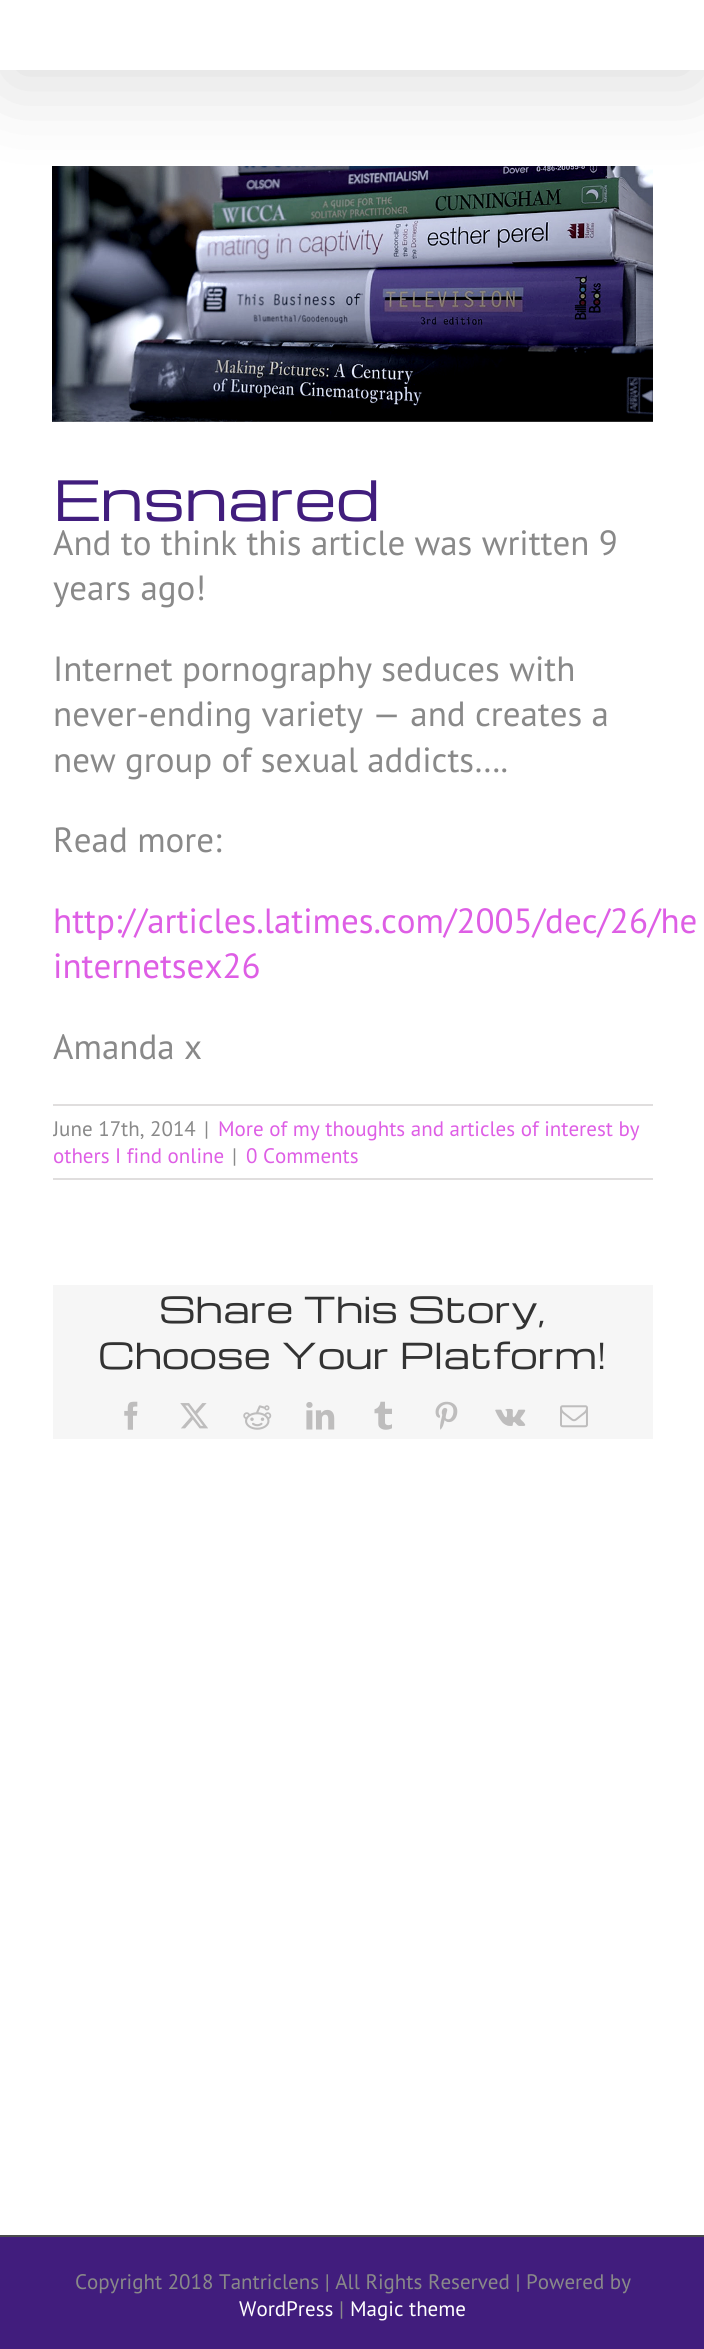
import math
import cairo

surface = cairo.ImageSurface(cairo.FORMAT_RGB24, 704, 2349)
ctx = cairo.Context(surface)
options = cairo.FontOptions()
options.set_hint_metrics(cairo.HINT_METRICS_OFF)
options.set_hint_style(cairo.HINT_STYLE_NONE)
ctx.set_font_options(options)
ctx.set_miter_limit(4)


def set_color(code):
    ctx.set_source_rgb(*(v / 255 for v in bytes.fromhex(code[-6:])))


def draw_text(x, y, s, family, size, color, bold=False, italic=False):
    ctx.select_font_face(family, cairo.FONT_SLANT_ITALIC if italic else cairo.FONT_SLANT_NORMAL, cairo.FONT_WEIGHT_BOLD if bold else cairo.FONT_WEIGHT_NORMAL)
    ctx.set_font_size(size)
    set_color(color)
    ctx.move_to(x, y)
    ctx.show_text(s)


def fill_rect(x, y, w, h, color):
    set_color(color)
    ctx.rectangle(x, y, w, h)
    ctx.fill()


def rounded_rect(x, y, w, h, r):
    ctx.new_sub_path()
    for i, (u, v) in enumerate([(x + w - r, y + h - r), (x + r, y + h - r), (x + r, y + r), (x + w - r, y + r)]):
        ctx.arc(u, v, r, i * math.pi / 2, (i + 1) * math.pi / 2)
    ctx.close_path()


def draw_shadow(x, y, w, h, r, blur, alpha):
    ctx.push_group_with_content(cairo.CONTENT_ALPHA)
    ctx.set_operator(cairo.OPERATOR_SOURCE)
    for i in range(15, -16, -2):
        e = blur * i / 6
        if min(w, h) + 2 * e > 0:
            ctx.set_source_rgba(0, 0, 0, alpha * math.erfc((i - 1) / 8.5) / 2)
            rounded_rect(x - e, y - e, w + 2 * e, h + 2 * e, max(0, min(r + e + blur * .6, min(w, h) / 2 + e)))
            ctx.fill()
    ctx.mask(ctx.pop_group())


def draw_image(path, x, y, w, h):
    ctx.save()
    ctx.set_source_surface(cairo.ImageSurface.create_from_png(path), x, y)
    ctx.rectangle(x, y, w, h)
    ctx.fill()
    ctx.restore()


set_color("#ffffff")
ctx.paint()
draw_image("assets/img1.png", 52, 166, 601, 256)
set_color("#000000")
draw_shadow(4, 21, 698, 63, 0, 44, 0.14)
fill_rect(0, 0, 704, 70, "#ffffff")
draw_text(53, 521, "Ensnared", "Michroma", 54.25, "#411d7d")
draw_text(53, 555, "And to think this article was written 9", "PT Sans", 35, "#898989")
draw_text(53, 600, "years ago!", "PT Sans", 35, "#898989")
draw_text(53, 681, "Internet pornography seduces with", "PT Sans", 35, "#898989")
draw_text(53, 726, "never-ending variety — and creates a", "PT Sans", 35, "#898989")
draw_text(53, 772, "new group of sexual addicts….", "PT Sans", 35, "#898989")
draw_text(53, 852, "Read more:", "PT Sans", 35, "#898989")
draw_text(53, 933, "http://articles.latimes.com/2005/dec/26/he", "PT Sans", 35, "#de5ee5")
draw_text(53, 978, "internetsex26", "PT Sans", 35, "#de5ee5")
draw_text(53, 1059, "Amanda x", "PT Sans", 35, "#898989")
fill_rect(53, 1104, 600, 2, "#e0dede")
fill_rect(53, 1178, 600, 2, "#e0dede")
ctx.save()
ctx.rectangle(53, 1106, 600, 72)
ctx.clip()
draw_text(53, 1136, "June 17th, 2014", "PT Sans", 21, "#898989")
ctx.restore()
draw_text(204, 1136, "|", "PT Sans", 21, "#898989")
draw_text(218, 1136, "More of my thoughts and articles of interest by", "PT Sans", 21, "#de5ee5")
draw_text(53, 1163, "others I find online", "PT Sans", 21, "#de5ee5")
draw_text(232, 1163, "|", "PT Sans", 21, "#898989")
draw_text(246, 1163, "0 Comments", "PT Sans", 21, "#de5ee5")
fill_rect(53, 1285, 600, 154, "#f6f6f6")
draw_text(159, 1323, "Share This Story,", "Michroma", 35, "#333333")
draw_text(98, 1369, "Choose Your Platform!", "Michroma", 35, "#333333")
draw_image("assets/img2.png", 124, 1401, 14, 29)
draw_image("assets/img3.png", 180, 1403, 28, 26)
draw_image("assets/img4.png", 243, 1405, 29, 25)
draw_image("assets/img5.png", 306, 1402, 29, 28)
draw_image("assets/img6.png", 374, 1401, 18, 29)
draw_image("assets/img7.png", 435, 1401, 23, 29)
draw_image("assets/img8.png", 495, 1408, 31, 18)
draw_image("assets/img9.png", 560, 1405, 28, 23)
fill_rect(0, 2237, 704, 112, "#411d7d")
fill_rect(0, 2235, 704, 2, "#4b4c4d")
draw_text(75, 2289, "Copyright 2018 Tantriclens | All Rights Reserved | Powered by", "PT Sans", 21, "#898989")
draw_text(239, 2316, "WordPress", "PT Sans", 21, "#ffffff")
draw_text(339, 2316, "|", "PT Sans", 21, "#898989")
draw_text(350, 2316, "Magic theme", "PT Sans", 21, "#ffffff")
surface.write_to_png("output.png")
